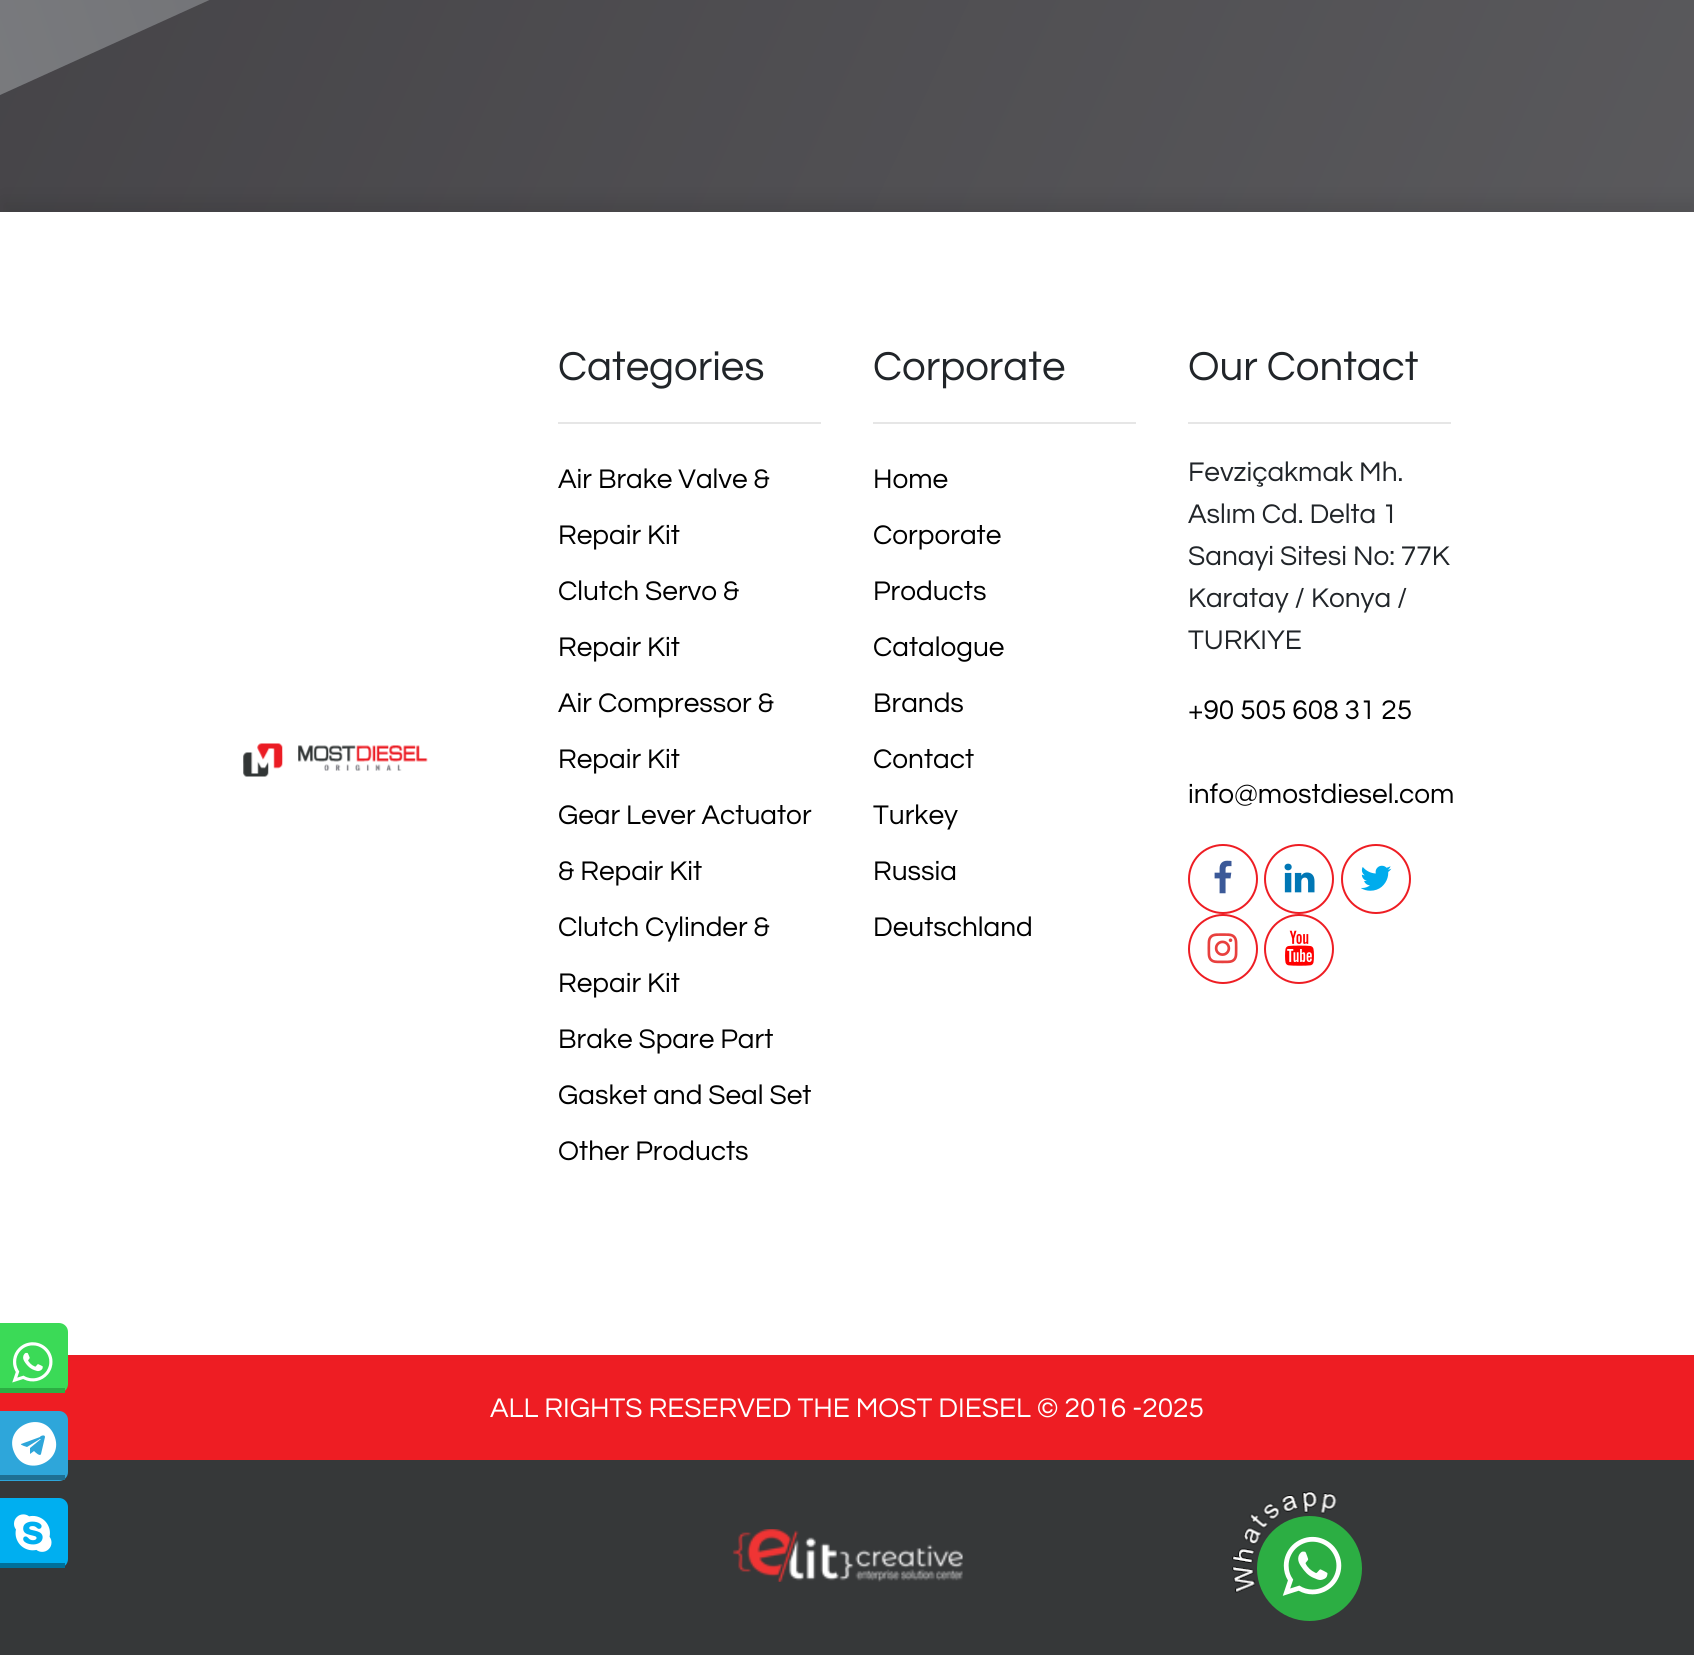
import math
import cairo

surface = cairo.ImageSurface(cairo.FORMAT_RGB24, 1694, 1655)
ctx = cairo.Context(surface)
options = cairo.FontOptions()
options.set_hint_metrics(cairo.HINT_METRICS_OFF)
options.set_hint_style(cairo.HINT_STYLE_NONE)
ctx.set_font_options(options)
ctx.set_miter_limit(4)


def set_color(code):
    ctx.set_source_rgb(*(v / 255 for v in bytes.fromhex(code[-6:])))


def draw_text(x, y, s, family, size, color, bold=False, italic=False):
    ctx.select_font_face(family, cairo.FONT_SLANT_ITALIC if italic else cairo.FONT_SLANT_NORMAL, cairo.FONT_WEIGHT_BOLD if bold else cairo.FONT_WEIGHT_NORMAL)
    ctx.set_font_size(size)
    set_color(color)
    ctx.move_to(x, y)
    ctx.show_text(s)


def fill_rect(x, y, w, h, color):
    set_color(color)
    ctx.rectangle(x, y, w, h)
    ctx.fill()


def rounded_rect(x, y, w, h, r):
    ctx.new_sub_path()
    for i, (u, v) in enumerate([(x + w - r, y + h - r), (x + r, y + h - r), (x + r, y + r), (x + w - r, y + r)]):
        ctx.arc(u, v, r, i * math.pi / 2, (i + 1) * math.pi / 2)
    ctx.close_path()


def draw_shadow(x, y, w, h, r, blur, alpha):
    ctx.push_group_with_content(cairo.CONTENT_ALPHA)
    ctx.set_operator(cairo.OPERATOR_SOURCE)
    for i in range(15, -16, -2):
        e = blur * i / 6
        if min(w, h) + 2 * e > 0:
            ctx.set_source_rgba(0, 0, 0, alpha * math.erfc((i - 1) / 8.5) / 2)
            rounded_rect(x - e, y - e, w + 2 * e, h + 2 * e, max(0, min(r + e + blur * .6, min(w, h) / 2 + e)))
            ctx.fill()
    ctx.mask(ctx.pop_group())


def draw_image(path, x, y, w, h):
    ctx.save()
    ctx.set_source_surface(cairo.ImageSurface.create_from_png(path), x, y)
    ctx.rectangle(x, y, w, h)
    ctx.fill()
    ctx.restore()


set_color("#ee1d23")
ctx.paint()
gradient = cairo.LinearGradient(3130, -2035, -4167, 545)
gradient.add_color_stop_rgba(0, 0.149, 0.137, 0.157, 1)
gradient.add_color_stop_rgba(0.57, 0.541, 0.549, 0.561, 1)
gradient.add_color_stop_rgba(0.93, 0.561, 0.569, 0.573, 1)
gradient.add_color_stop_rgba(1, 0.561, 0.565, 0.576, 1)
ctx.set_source(gradient)
ctx.new_path()
ctx.move_to(-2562, -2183)
ctx.line_to(-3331, -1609)
ctx.line_to(-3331, -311)
ctx.line_to(-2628, 213)
ctx.line_to(721, 213)
ctx.line_to(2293, -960)
ctx.line_to(655, -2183)
ctx.close_path()
ctx.fill()
gradient = cairo.LinearGradient(-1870, -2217, 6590, 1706)
gradient.add_color_stop_rgba(0, 0.149, 0.137, 0.157, 1)
gradient.add_color_stop_rgba(0.93, 0.561, 0.569, 0.573, 1)
gradient.add_color_stop_rgba(1, 0.561, 0.565, 0.576, 1)
ctx.set_source(gradient)
ctx.new_path()
ctx.move_to(-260, 213)
ctx.line_to(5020, -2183)
ctx.line_to(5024, -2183)
ctx.line_to(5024, 213)
ctx.close_path()
ctx.fill()
set_color("#000000")
draw_shadow(2, 201, 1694, 1143, 0, 9, 0.1)
fill_rect(0, 212, 1694, 1143, "#ffffff")
draw_image("assets/img1.png", 243, 743, 185, 34)
draw_text(558, 380, "Categories", "Questrial", 42, "#212529")
fill_rect(558, 422, 263, 2, "#e6e6e6")
draw_text(558, 488, "Air Brake Valve &", "Questrial", 28, "#000000")
draw_text(558, 544, "Repair Kit", "Questrial", 28, "#000000")
draw_text(558, 600, "Clutch Servo &", "Questrial", 28, "#000000")
draw_text(558, 656, "Repair Kit", "Questrial", 28, "#000000")
draw_text(558, 712, "Air Compressor &", "Questrial", 28, "#000000")
draw_text(558, 768, "Repair Kit", "Questrial", 28, "#000000")
draw_text(558, 824, "Gear Lever Actuator", "Questrial", 28, "#000000")
draw_text(558, 880, "& Repair Kit", "Questrial", 28, "#000000")
draw_text(558, 936, "Clutch Cylinder &", "Questrial", 28, "#000000")
draw_text(558, 992, "Repair Kit", "Questrial", 28, "#000000")
draw_text(558, 1048, "Brake Spare Part", "Questrial", 28, "#000000")
draw_text(558, 1104, "Gasket and Seal Set", "Questrial", 28, "#000000")
draw_text(558, 1160, "Other Products", "Questrial", 28, "#000000")
draw_text(873, 380, "Corporate", "Questrial", 42, "#212529")
fill_rect(873, 422, 263, 2, "#e6e6e6")
draw_text(873, 488, "Home", "Questrial", 28, "#000000")
draw_text(873, 544, "Corporate", "Questrial", 28, "#000000")
draw_text(873, 600, "Products", "Questrial", 28, "#000000")
draw_text(873, 656, "Catalogue", "Questrial", 28, "#000000")
draw_text(873, 712, "Brands", "Questrial", 28, "#000000")
draw_text(873, 768, "Contact", "Questrial", 28, "#000000")
draw_text(873, 824, "Turkey", "Questrial", 28, "#000000")
draw_text(873, 880, "Russia", "Questrial", 28, "#000000")
draw_text(873, 936, "Deutschland", "Questrial", 28, "#000000")
draw_text(1188, 380, "Our Contact", "Questrial", 42, "#212529")
fill_rect(1188, 422, 263, 2, "#e6e6e6")
draw_text(1188, 481, "Fevziçakmak Mh.", "Questrial", 28, "#212529")
draw_text(1188, 523, "Aslım Cd. Delta 1", "Questrial", 28, "#212529")
draw_text(1188, 565, "Sanayi Sitesi No: 77K", "Questrial", 28, "#212529")
draw_text(1188, 607, "Karatay / Konya /", "Questrial", 28, "#212529")
draw_text(1188, 649, "TURKIYE", "Questrial", 28, "#212529")
draw_text(1188, 719, "+90 505 608 31 25", "Questrial", 28, "#000000")
draw_text(1188, 803, "info@mostdiesel.com", "Questrial", 28, "#000000")
ctx.new_path()
ctx.arc(1223, 879, 34, 0, 2 * math.pi)
set_color("#ee1d23")
ctx.stroke()
draw_image("assets/img2.png", 1214, 860, 18, 34)
ctx.arc(1299, 879, 34, 0, 2 * math.pi)
ctx.stroke()
draw_image("assets/img3.png", 1284, 863, 31, 30)
ctx.arc(1376, 879, 34, 0, 2 * math.pi)
ctx.stroke()
draw_image("assets/img4.png", 1361, 865, 31, 26)
ctx.arc(1223, 949, 34, 0, 2 * math.pi)
ctx.stroke()
draw_image("assets/img5.png", 1207, 933, 31, 31)
ctx.arc(1299, 949, 34, 0, 2 * math.pi)
ctx.stroke()
draw_image("assets/img6.png", 1285, 930, 29, 36)
set_color("#3bda57")
ctx.new_path()
ctx.move_to(-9, 1323)
ctx.line_to(59, 1323)
ctx.curve_to(64, 1323, 68, 1327, 68, 1332)
ctx.line_to(68, 1384)
ctx.curve_to(68, 1389, 64, 1393, 59, 1393)
ctx.line_to(-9, 1393)
ctx.close_path()
ctx.fill()
fill_rect(0, 1388, 65, 5, "#2cae43")
draw_image("assets/img7.png", 12, 1342, 41, 41)
fill_rect(0, 1460, 1694, 195, "#363839")
set_color("#2ea6da")
ctx.new_path()
ctx.move_to(-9, 1411)
ctx.line_to(59, 1411)
ctx.curve_to(64, 1411, 68, 1415, 68, 1420)
ctx.line_to(68, 1472)
ctx.curve_to(68, 1477, 64, 1481, 59, 1481)
ctx.line_to(-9, 1481)
ctx.close_path()
ctx.fill()
fill_rect(0, 1475, 65, 5, "#1e7094")
set_color("#ffffff")
ctx.new_path()
ctx.move_to(41, 1454)
ctx.line_to(45, 1437)
ctx.curve_to(45, 1434, 40, 1436, 40, 1437)
ctx.line_to(21, 1444)
ctx.curve_to(20, 1445, 27, 1447, 27, 1447)
ctx.line_to(40, 1439)
ctx.curve_to(40, 1439, 41, 1439, 41, 1439)
ctx.line_to(30, 1448)
ctx.line_to(30, 1454)
ctx.line_to(34, 1451)
ctx.curve_to(35, 1452, 40, 1457, 41, 1454)
ctx.close_path()
ctx.move_to(54, 1435)
ctx.curve_to(66, 1462, 25, 1479, 14, 1452)
ctx.curve_to(3, 1426, 43, 1409, 54, 1435)
ctx.close_path()
ctx.fill()
set_color("#00aff0")
ctx.new_path()
ctx.move_to(-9, 1498)
ctx.line_to(59, 1498)
ctx.curve_to(64, 1498, 68, 1502, 68, 1507)
ctx.line_to(68, 1559)
ctx.curve_to(68, 1564, 64, 1568, 59, 1568)
ctx.line_to(-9, 1568)
ctx.close_path()
ctx.fill()
fill_rect(0, 1563, 65, 5, "#00709a")
draw_image("assets/img8.png", 14, 1514, 38, 38)
draw_text(490, 1417, "ALL RIGHTS RESERVED THE MOST DIESEL © 2016 -2025", "Questrial", 28, "#ffffff")
draw_image("assets/img9.png", 732, 1529, 231, 53)
set_color("#2cae43")
ctx.arc(1309.5, 1568.5, 52.5, 0, 2 * math.pi)
ctx.fill()
draw_image("assets/img11.png", 1282, 1536, 60, 60)
draw_image("assets/img10.png", 1232, 1491, 105, 102)
surface.write_to_png("output.png")
